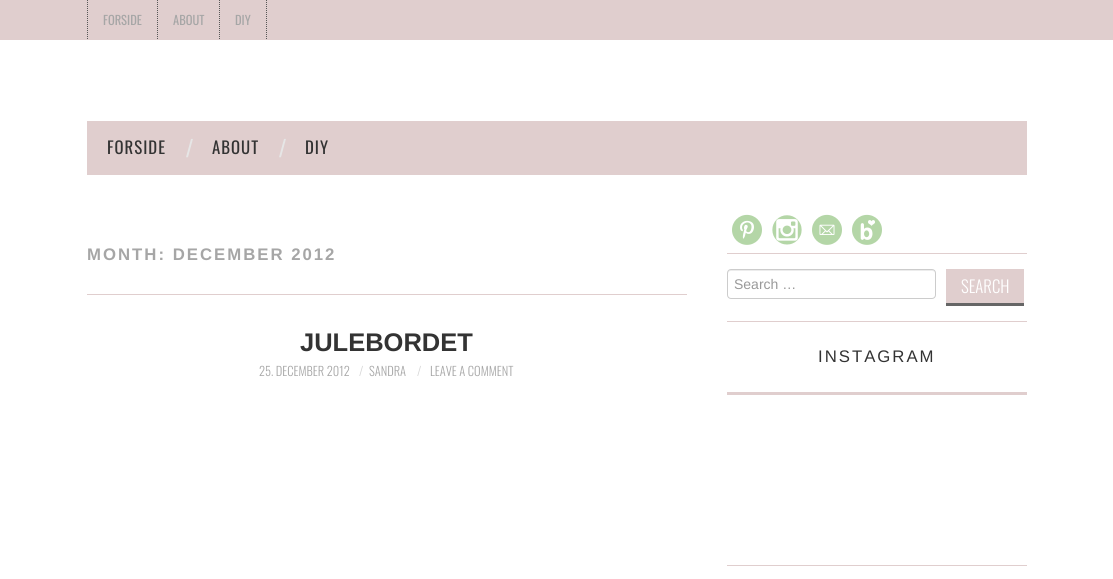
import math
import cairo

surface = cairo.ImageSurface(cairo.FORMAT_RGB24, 1113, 579)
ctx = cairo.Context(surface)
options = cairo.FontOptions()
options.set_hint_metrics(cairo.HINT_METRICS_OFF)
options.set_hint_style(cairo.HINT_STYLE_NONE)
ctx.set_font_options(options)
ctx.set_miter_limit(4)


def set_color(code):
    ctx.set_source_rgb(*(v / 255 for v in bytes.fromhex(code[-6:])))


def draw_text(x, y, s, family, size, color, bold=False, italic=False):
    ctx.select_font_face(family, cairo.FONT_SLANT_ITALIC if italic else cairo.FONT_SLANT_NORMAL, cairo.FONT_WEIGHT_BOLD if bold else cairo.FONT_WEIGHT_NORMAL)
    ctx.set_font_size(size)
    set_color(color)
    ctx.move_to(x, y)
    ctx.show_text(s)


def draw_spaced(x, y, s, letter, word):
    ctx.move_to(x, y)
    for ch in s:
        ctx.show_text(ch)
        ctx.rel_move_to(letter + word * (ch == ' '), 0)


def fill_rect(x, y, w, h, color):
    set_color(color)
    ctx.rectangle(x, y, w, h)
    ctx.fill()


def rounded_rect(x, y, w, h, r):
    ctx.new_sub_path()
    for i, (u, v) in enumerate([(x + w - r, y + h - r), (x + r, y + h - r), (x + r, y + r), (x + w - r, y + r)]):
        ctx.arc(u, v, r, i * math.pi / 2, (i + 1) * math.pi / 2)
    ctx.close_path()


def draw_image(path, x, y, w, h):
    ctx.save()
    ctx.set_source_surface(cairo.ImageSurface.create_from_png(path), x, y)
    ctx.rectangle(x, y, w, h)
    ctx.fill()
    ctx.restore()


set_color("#ffffff")
ctx.paint()
fill_rect(0, 0, 1113, 40, "#e0cece")
ctx.new_path()
ctx.move_to(87.5, 0)
ctx.line_to(87.5, 40)
set_color("#565656")
ctx.set_line_width(1)
ctx.set_dash([1, 1])
ctx.stroke()
ctx.new_path()
ctx.move_to(157.5, 0)
ctx.line_to(157.5, 40)
ctx.stroke()
draw_text(103, 25, "FORSIDE", "Oswald", 12.5, "#a6a6a6")
ctx.new_path()
ctx.move_to(219.5, 0)
ctx.line_to(219.5, 40)
set_color("#565656")
ctx.stroke()
draw_text(173, 25, "ABOUT", "Oswald", 12.5, "#a6a6a6")
ctx.new_path()
ctx.move_to(266.5, 0)
ctx.line_to(266.5, 40)
set_color("#565656")
ctx.stroke()
draw_text(235, 25, "DIY", "Oswald", 12.5, "#a6a6a6")
fill_rect(87, 121, 940, 1, "#e0cece")
fill_rect(87, 122, 940, 53, "#e0cece")
ctx.set_font_size(16.75)
set_color("#333333")
draw_spaced(107, 154, "FORSIDE", 1, 0)
draw_text(186, 157, "/", "Liberation Sans", 25, "#e6e6e6")
ctx.select_font_face("Oswald")
ctx.set_font_size(16.75)
set_color("#333333")
draw_spaced(212, 154, "ABOUT", 1, 0)
draw_text(279, 157, "/", "Liberation Sans", 25, "#e6e6e6")
ctx.select_font_face("Oswald")
ctx.set_font_size(16.75)
set_color("#333333")
draw_spaced(305, 154, "DIY", 1, 0)
fill_rect(87, 294, 600, 1, "#e0cece")
ctx.select_font_face("Liberation Sans", cairo.FONT_SLANT_NORMAL, cairo.FONT_WEIGHT_BOLD)
set_color("#a6a6a6")
draw_spaced(87, 260, "MONTH: DECEMBER 2012", 2, 0)
draw_text(300, 351, "JULEBORDET", "Liberation Sans", 25.5, "#333333", bold=True)
draw_text(259, 376, "25. DECEMBER 2012", "Oswald Light", 12.5, "#a6a6a6")
draw_text(359, 376, "/", "Oswald Light", 12.5, "#d6d6d6")
draw_text(369, 376, "SANDRA", "Oswald Light", 12.5, "#a6a6a6")
draw_text(417, 376, "/", "Oswald Light", 12.5, "#d6d6d6")
draw_text(430, 376, "LEAVE A COMMENT", "Oswald Light", 12.5, "#a6a6a6")
fill_rect(727, 253, 300, 1, "#e0cece")
draw_image("assets/img1.png", 732, 214, 30, 31)
draw_image("assets/img2.png", 772, 215, 30, 30)
draw_image("assets/img3.png", 812, 214, 30, 31)
draw_image("assets/img4.png", 852, 214, 30, 31)
fill_rect(727, 321, 300, 1, "#e0cece")
set_color("#ececec")
ctx.new_path()
ctx.move_to(731, 271)
ctx.line_to(932, 271)
ctx.curve_to(934, 271, 935, 272, 935, 274)
ctx.curve_to(935, 272, 934, 270, 932, 270)
ctx.line_to(730, 270)
ctx.curve_to(728, 271, 728, 272, 728, 274)
ctx.curve_to(728, 272, 729, 271, 731, 271)
ctx.close_path()
ctx.fill()
rounded_rect(727.5, 269.5, 208, 29, 3.5)
set_color("#cccccc")
ctx.set_dash([])
ctx.stroke()
draw_text(734, 289, "Search …", "Liberation Sans", 14, "#999999")
fill_rect(946, 269, 78, 34, "#e0cece")
fill_rect(946, 303, 78, 3, "#666666")
draw_text(961, 293, "SEARCH", "Oswald Light", 16.75, "#ffffff")
fill_rect(727, 565, 300, 1, "#e0cece")
fill_rect(727, 392, 300, 3, "#e0cece")
ctx.select_font_face("Liberation Sans")
set_color("#333333")
draw_spaced(818, 362, "INSTAGRAM", 2, 0)
surface.write_to_png("output.png")
